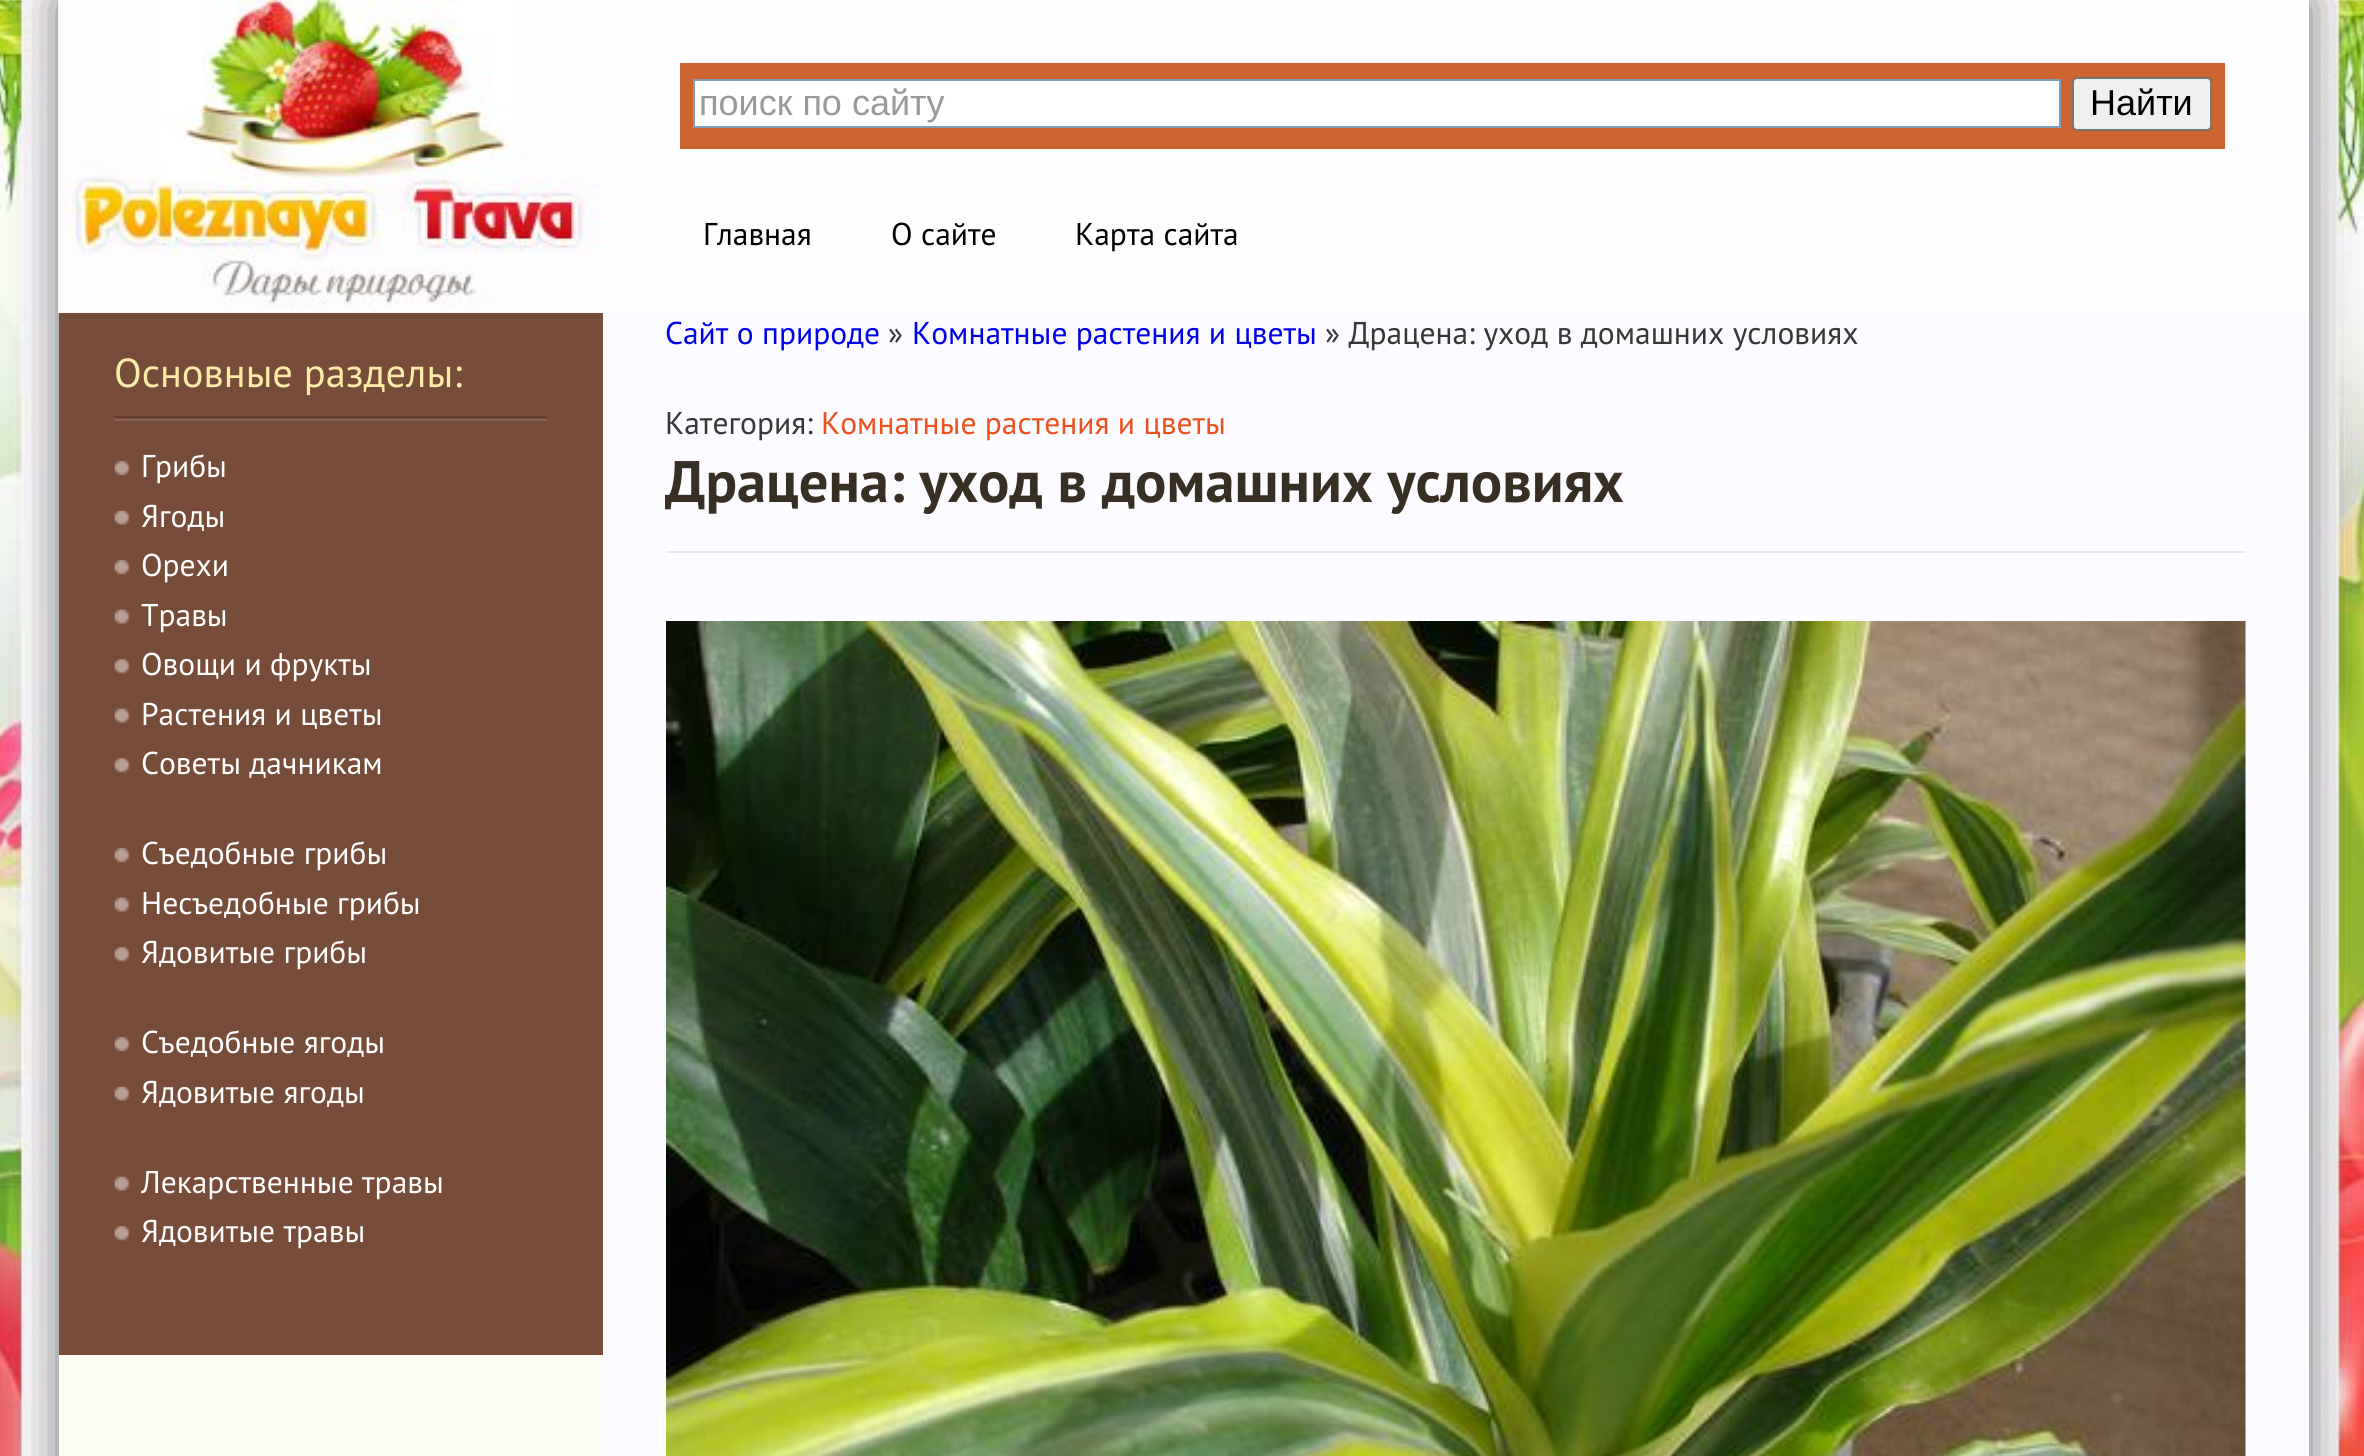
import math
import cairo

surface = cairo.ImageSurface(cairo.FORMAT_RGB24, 2364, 1456)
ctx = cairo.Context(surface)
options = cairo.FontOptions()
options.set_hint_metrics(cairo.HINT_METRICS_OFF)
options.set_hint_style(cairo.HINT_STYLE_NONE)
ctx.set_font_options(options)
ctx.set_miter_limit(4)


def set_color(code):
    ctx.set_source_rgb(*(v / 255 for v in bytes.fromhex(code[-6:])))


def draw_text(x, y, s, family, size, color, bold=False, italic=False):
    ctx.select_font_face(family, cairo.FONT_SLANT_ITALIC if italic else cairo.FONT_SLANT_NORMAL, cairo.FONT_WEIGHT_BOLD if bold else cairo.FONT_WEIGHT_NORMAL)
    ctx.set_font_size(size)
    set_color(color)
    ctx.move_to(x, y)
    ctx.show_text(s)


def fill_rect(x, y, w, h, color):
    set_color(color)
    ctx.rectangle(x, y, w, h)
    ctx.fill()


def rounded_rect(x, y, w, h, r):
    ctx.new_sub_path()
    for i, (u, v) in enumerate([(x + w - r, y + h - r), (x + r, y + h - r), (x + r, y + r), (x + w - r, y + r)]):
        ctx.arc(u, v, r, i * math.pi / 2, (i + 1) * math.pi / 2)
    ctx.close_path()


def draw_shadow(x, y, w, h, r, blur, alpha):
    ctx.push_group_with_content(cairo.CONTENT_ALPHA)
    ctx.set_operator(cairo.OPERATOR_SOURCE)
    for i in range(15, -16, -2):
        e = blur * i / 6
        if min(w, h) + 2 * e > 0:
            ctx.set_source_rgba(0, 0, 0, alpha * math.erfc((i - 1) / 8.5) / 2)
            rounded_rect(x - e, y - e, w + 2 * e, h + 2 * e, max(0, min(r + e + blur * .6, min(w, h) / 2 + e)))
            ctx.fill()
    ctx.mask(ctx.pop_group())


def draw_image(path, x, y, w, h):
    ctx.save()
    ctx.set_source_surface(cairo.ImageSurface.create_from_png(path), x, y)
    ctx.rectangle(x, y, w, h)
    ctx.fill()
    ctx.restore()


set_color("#ffffff")
ctx.paint()
draw_image("assets/img1.png", 0, 0, 2364, 1456)
ctx.save()
ctx.set_fill_rule(cairo.FILL_RULE_EVEN_ODD)
ctx.new_path()
ctx.move_to(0, 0)
ctx.line_to(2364, 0)
ctx.line_to(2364, 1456)
ctx.line_to(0, 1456)
ctx.close_path()
ctx.move_to(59, 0)
ctx.line_to(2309, 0)
ctx.line_to(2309, 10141)
ctx.line_to(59, 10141)
ctx.close_path()
ctx.clip()
set_color("#000000")
draw_shadow(59, 0, 2250, 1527, 0, 23.5, 0.57)
ctx.restore()
ctx.set_source_rgba(1, 1, 1, 0.61)
ctx.rectangle(58, 0, 2251, 313)
ctx.fill()
draw_image("assets/img2.png", 58, 0, 542, 313)
fill_rect(680, 63, 1545, 86, "#ce6432")
set_color("#ffffff")
ctx.rectangle(694, 80, 1366, 47)
ctx.fill_preserve()
set_color("#7f9db9")
ctx.stroke()
draw_text(699, 115, "поиск по сайту", "Liberation Sans", 36, "#999999")
set_color("#efefef")
rounded_rect(2073, 78, 138, 52, 4)
ctx.fill_preserve()
set_color("#767676")
ctx.stroke()
draw_text(2090, 115, "Найти", "Liberation Sans", 36, "#000000")
draw_text(703, 245, "Главная", "PT Sans", 31.5, "#000000")
draw_text(891, 245, "О сайте", "PT Sans", 31.5, "#000000")
draw_text(1075, 245, "Карта сайта", "PT Sans", 31.5, "#000000")
fill_rect(59, 313, 544, 1042, "#774d39")
draw_image("assets/img3.png", 114, 416, 433, 5)
draw_text(114, 387, "Основные разделы:", "PT Sans", 40.5, "#fdeda9")
draw_image("assets/img4.png", 114, 461, 16, 15)
draw_text(141, 477, "Грибы", "PT Sans", 31.5, "#ffffff")
draw_image("assets/img5.png", 114, 510, 16, 15)
draw_text(141, 527, "Ягоды", "PT Sans", 31.5, "#ffffff")
draw_image("assets/img4.png", 114, 560, 16, 15)
draw_text(141, 576, "Орехи", "PT Sans", 31.5, "#ffffff")
draw_image("assets/img5.png", 114, 609, 16, 15)
draw_text(141, 626, "Травы", "PT Sans", 31.5, "#ffffff")
draw_image("assets/img4.png", 114, 659, 16, 15)
draw_text(141, 675, "Овощи и фрукты", "PT Sans", 31.5, "#ffffff")
draw_image("assets/img5.png", 114, 708, 16, 15)
draw_text(141, 725, "Растения и цветы", "PT Sans", 31.5, "#ffffff")
draw_image("assets/img4.png", 114, 758, 16, 15)
draw_text(141, 774, "Советы дачникам", "PT Sans", 31.5, "#ffffff")
draw_image("assets/img4.png", 114, 848, 16, 15)
draw_text(141, 864, "Съедобные грибы", "PT Sans", 31.5, "#ffffff")
draw_image("assets/img5.png", 114, 897, 16, 15)
draw_text(141, 914, "Несъедобные грибы", "PT Sans", 31.5, "#ffffff")
draw_image("assets/img4.png", 114, 947, 16, 15)
draw_text(141, 963, "Ядовитые грибы", "PT Sans", 31.5, "#ffffff")
draw_image("assets/img4.png", 114, 1037, 16, 15)
draw_text(141, 1053, "Съедобные ягоды", "PT Sans", 31.5, "#ffffff")
draw_image("assets/img5.png", 114, 1086, 16, 15)
draw_text(141, 1103, "Ядовитые ягоды", "PT Sans", 31.5, "#ffffff")
draw_image("assets/img5.png", 114, 1176, 16, 15)
draw_text(141, 1193, "Лекарственные травы", "PT Sans", 31.5, "#ffffff")
draw_image("assets/img4.png", 114, 1226, 16, 15)
draw_text(141, 1242, "Ядовитые травы", "PT Sans", 31.5, "#ffffff")
fill_rect(59, 1355, 544, 101, "#fcfcf4")
draw_text(665, 344, "Сайт о природе", "PT Sans", 31.5, "#0000ee")
draw_text(888, 344, "»", "PT Sans", 31.5, "#373737")
draw_text(912, 344, "Комнатные растения и цветы", "PT Sans", 31.5, "#0000ee")
draw_text(1325, 344, "» Драцена: уход в домашних условиях", "PT Sans", 31.5, "#373737")
draw_text(665, 434, "Категория:", "PT Sans", 31.5, "#373737")
draw_text(821, 434, "Комнатные растения и цветы", "PT Sans", 31.5, "#ed501f")
fill_rect(666, 551, 1580, 2, "#e8e8e8")
draw_text(665, 502, "Драцена: уход в домашних условиях", "PT Sans", 58.5, "#372f24", bold=True)
draw_image("assets/img6.png", 666, 621, 1580, 835)
surface.write_to_png("output.png")
